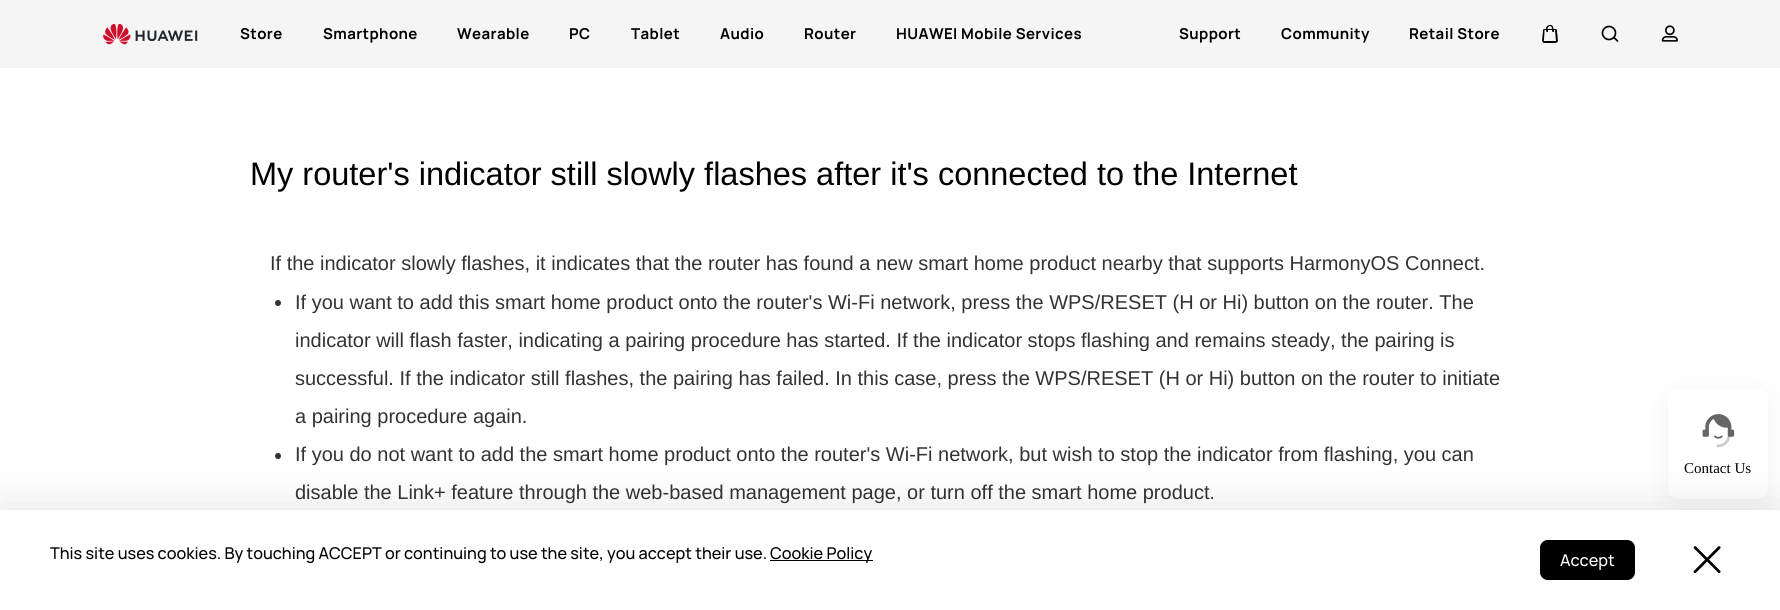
import math
import cairo

surface = cairo.ImageSurface(cairo.FORMAT_RGB24, 1780, 610)
ctx = cairo.Context(surface)
options = cairo.FontOptions()
options.set_hint_metrics(cairo.HINT_METRICS_OFF)
options.set_hint_style(cairo.HINT_STYLE_NONE)
ctx.set_font_options(options)
ctx.set_miter_limit(4)


def set_color(code):
    ctx.set_source_rgb(*(v / 255 for v in bytes.fromhex(code[-6:])))


def draw_text(x, y, s, family, size, color, bold=False, italic=False):
    ctx.select_font_face(family, cairo.FONT_SLANT_ITALIC if italic else cairo.FONT_SLANT_NORMAL, cairo.FONT_WEIGHT_BOLD if bold else cairo.FONT_WEIGHT_NORMAL)
    ctx.set_font_size(size)
    set_color(color)
    ctx.move_to(x, y)
    ctx.show_text(s)


def draw_spaced(x, y, s, letter, word):
    ctx.move_to(x, y)
    for ch in s:
        ctx.show_text(ch)
        ctx.rel_move_to(letter + word * (ch == ' '), 0)


def fill_rect(x, y, w, h, color):
    set_color(color)
    ctx.rectangle(x, y, w, h)
    ctx.fill()


def rounded_rect(x, y, w, h, r):
    ctx.new_sub_path()
    for i, (u, v) in enumerate([(x + w - r, y + h - r), (x + r, y + h - r), (x + r, y + r), (x + w - r, y + r)]):
        ctx.arc(u, v, r, i * math.pi / 2, (i + 1) * math.pi / 2)
    ctx.close_path()


def draw_shadow(x, y, w, h, r, blur, alpha):
    ctx.push_group_with_content(cairo.CONTENT_ALPHA)
    ctx.set_operator(cairo.OPERATOR_SOURCE)
    for i in range(15, -16, -2):
        e = blur * i / 6
        if min(w, h) + 2 * e > 0:
            ctx.set_source_rgba(0, 0, 0, alpha * math.erfc((i - 1) / 8.5) / 2)
            rounded_rect(x - e, y - e, w + 2 * e, h + 2 * e, max(0, min(r + e + blur * .6, min(w, h) / 2 + e)))
            ctx.fill()
    ctx.mask(ctx.pop_group())


def draw_image(path, x, y, w, h):
    ctx.save()
    ctx.set_source_surface(cairo.ImageSurface.create_from_png(path), x, y)
    ctx.rectangle(x, y, w, h)
    ctx.fill()
    ctx.restore()


set_color("#ffffff")
ctx.paint()
fill_rect(0, 0, 1780, 68, "#f5f5f5")
draw_image("assets/img1.png", 103, 24, 95, 21)
ctx.select_font_face("Manrope", cairo.FONT_SLANT_NORMAL, cairo.FONT_WEIGHT_BOLD)
ctx.set_font_size(15)
set_color("#000000")
draw_spaced(240, 39, "Store", 0.4, 0)
draw_spaced(323, 39, "Smartphone", 0.4, 0)
draw_spaced(457, 39, "Wearable", 0.4, 0)
draw_spaced(569, 39, "PC", 0.4, 0)
draw_spaced(631, 39, "Tablet", 0.4, 0)
draw_spaced(720, 39, "Audio", 0.4, 0)
draw_spaced(804, 39, "Router", 0.4, 0)
draw_spaced(896, 39, "HUAWEI Mobile Services", 0.4, 0)
draw_spaced(1179, 39, "Support", 0.4, 0)
draw_spaced(1281, 39, "Community", 0.4, 0)
draw_spaced(1409, 39, "Retail Store", 0.4, 0)
ctx.set_fill_rule(cairo.FILL_RULE_EVEN_ODD)
ctx.new_path()
ctx.move_to(1550, 25)
ctx.curve_to(1547.5, 25, 1546, 26.5, 1546, 29)
ctx.curve_to(1543, 29, 1543, 29, 1543, 32)
ctx.line_to(1542.5, 35.5)
ctx.curve_to(1542.5, 37, 1541, 42.5, 1544, 43)
ctx.line_to(1554, 43)
ctx.curve_to(1559.5, 43, 1557.5, 40.5, 1557.5, 35.5)
ctx.line_to(1557, 32)
ctx.curve_to(1557, 29, 1557, 29, 1553.5, 29)
ctx.curve_to(1553.5, 26.5, 1552, 24.5, 1550, 25)
ctx.close_path()
ctx.move_to(1550, 26)
ctx.curve_to(1551.5, 26, 1552, 27.5, 1552, 29)
ctx.line_to(1547.5, 29)
ctx.curve_to(1547.5, 27.5, 1548.5, 26, 1550, 26)
ctx.close_path()
ctx.move_to(1555, 30)
ctx.line_to(1556, 41)
ctx.line_to(1546, 41)
ctx.curve_to(1543.5, 41, 1544, 42, 1544, 39)
ctx.line_to(1544.5, 32)
ctx.curve_to(1544.5, 30, 1544, 30, 1546, 30)
ctx.line_to(1546.5, 32)
ctx.line_to(1548, 32)
ctx.line_to(1548, 30)
ctx.line_to(1552, 30)
ctx.line_to(1552.5, 32)
ctx.line_to(1554, 32)
ctx.line_to(1554, 30)
ctx.close_path()
ctx.fill()
ctx.arc(1609, 33, 6.5, 0, 2 * math.pi)
ctx.set_line_width(1.7)
ctx.stroke()
ctx.new_path()
ctx.move_to(1617.5, 41)
ctx.line_to(1614, 37.5)
ctx.set_line_cap(cairo.LINE_CAP_ROUND)
ctx.set_line_join(cairo.LINE_JOIN_ROUND)
ctx.stroke()
draw_image("assets/img2.png", 1661, 25, 17, 17)
draw_text(250, 185, "My router's indicator still slowly flashes after it's connected to the Internet", "Liberation Sans", 32.5, "#000000")
draw_text(270, 270, "If the indicator slowly flashes, it indicates that the router has found a new smart home product nearby that supports HarmonyOS Connect.", "Liberation Sans", 20, "#333333")
ctx.new_path()
ctx.arc(278, 303, 3, 0, 2 * math.pi)
ctx.fill()
draw_text(295, 309, "If you want to add this smart home product onto the router's Wi-Fi network, press the WPS/RESET (H or Hi) button on the router. The", "Liberation Sans", 20, "#333333")
draw_text(295, 347, "indicator will flash faster, indicating a pairing procedure has started. If the indicator stops flashing and remains steady, the pairing is", "Liberation Sans", 20, "#333333")
draw_text(295, 385, "successful. If the indicator still flashes, the pairing has failed. In this case, press the WPS/RESET (H or Hi) button on the router to initiate", "Liberation Sans", 20, "#333333")
draw_text(295, 423, "a pairing procedure again.", "Liberation Sans", 20, "#333333")
ctx.new_path()
ctx.arc(278, 456, 3, 0, 2 * math.pi)
ctx.fill()
draw_text(295, 461, "If you do not want to add the smart home product onto the router's Wi-Fi network, but wish to stop the indicator from flashing, you can", "Liberation Sans", 20, "#333333")
draw_text(295, 499, "disable the Link+ feature through the web-based management page, or turn off the smart home product.", "Liberation Sans", 20, "#333333")
set_color("#000000")
draw_shadow(1668, 395, 100, 110, 10, 12.5, 0.05)
set_color("#ffffff")
rounded_rect(1668, 389, 100, 110, 10)
ctx.fill()
draw_image("assets/img3.png", 1702, 414, 33, 34)
draw_text(1684, 473, "Contact Us", "Liberation Serif", 15, "#000000")
set_color("#000000")
draw_shadow(0, 505, 1780, 100, 0, 19, 0.1)
fill_rect(0, 510, 1780, 100, "#ffffff")
draw_text(50, 559, "This site uses cookies. By touching ACCEPT or continuing to use the site, you accept their use.", "Manrope Medium", 16.25, "#000000")
fill_rect(770, 560, 103, 1, "#000000")
draw_text(770, 559, "Cookie Policy", "Manrope Medium", 16.25, "#000000")
rounded_rect(1540, 540, 95, 40, 8)
ctx.fill()
rounded_rect(1540.5, 540.5, 94, 39, 7.5)
ctx.set_source_rgba(0, 0, 0, 0.3)
ctx.set_line_width(1)
ctx.set_line_cap(cairo.LINE_CAP_BUTT)
ctx.set_line_join(cairo.LINE_JOIN_MITER)
ctx.stroke()
draw_text(1560, 566, "Accept", "Manrope Medium", 16.25, "#ffffff")
draw_image("assets/img4.png", 1693, 546, 28, 28)
surface.write_to_png("output.png")
